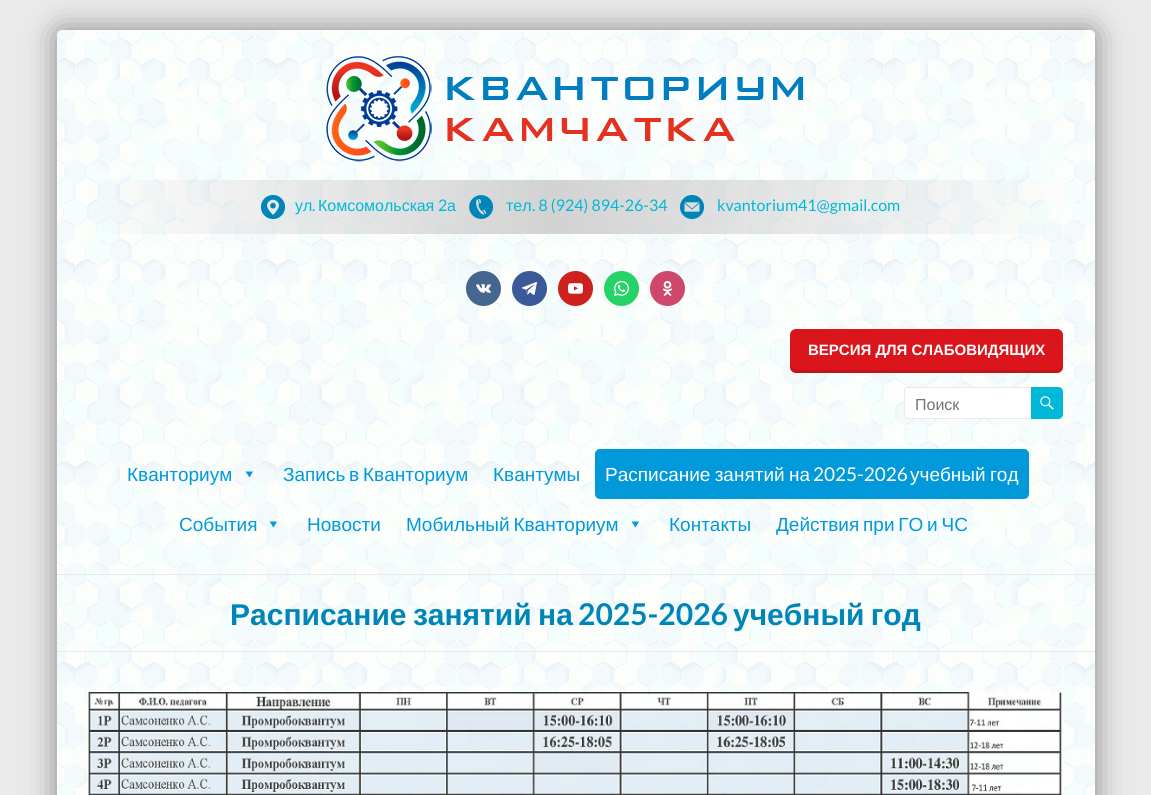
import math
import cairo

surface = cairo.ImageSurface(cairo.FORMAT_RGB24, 1151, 795)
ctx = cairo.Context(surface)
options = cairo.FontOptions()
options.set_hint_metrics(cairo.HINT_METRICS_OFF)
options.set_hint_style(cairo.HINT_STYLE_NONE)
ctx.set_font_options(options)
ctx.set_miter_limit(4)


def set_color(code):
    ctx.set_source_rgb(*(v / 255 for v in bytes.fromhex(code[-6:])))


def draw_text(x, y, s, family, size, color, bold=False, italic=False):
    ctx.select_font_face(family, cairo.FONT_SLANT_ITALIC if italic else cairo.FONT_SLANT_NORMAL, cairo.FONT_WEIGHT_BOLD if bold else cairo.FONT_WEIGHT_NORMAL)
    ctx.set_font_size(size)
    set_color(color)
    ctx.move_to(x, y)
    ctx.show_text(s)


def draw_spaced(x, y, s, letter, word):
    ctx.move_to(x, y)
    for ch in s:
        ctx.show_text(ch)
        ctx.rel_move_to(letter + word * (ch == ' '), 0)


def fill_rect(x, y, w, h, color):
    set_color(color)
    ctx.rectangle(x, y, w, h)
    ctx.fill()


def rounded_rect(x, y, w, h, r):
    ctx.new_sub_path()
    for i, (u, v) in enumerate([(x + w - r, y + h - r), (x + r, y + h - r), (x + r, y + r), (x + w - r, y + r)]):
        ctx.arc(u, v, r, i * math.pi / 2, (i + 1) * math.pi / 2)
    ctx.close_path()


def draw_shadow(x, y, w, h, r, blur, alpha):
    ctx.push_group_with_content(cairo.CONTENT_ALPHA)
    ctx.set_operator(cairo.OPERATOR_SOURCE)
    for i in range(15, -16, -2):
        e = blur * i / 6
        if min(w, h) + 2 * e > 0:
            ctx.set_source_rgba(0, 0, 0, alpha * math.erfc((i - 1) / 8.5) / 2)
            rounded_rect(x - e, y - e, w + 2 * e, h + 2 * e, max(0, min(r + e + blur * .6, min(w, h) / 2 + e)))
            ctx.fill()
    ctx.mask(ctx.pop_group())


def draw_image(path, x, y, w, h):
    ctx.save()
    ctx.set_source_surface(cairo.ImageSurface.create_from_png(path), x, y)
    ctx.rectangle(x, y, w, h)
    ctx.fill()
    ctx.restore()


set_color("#eaeaea")
ctx.paint()
set_color("#868686")
draw_shadow(57, 30, 1038, 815, 5, 15, 1)
draw_image("assets/img1.png", 57, 30, 1038, 765)
fill_rect(57, 574, 1038, 1, "#eaeaea")
draw_image("assets/img2.png", 326, 56, 479, 106)
draw_image("assets/img3.png", 261, 195, 24, 24)
draw_text(295, 211, "ул", "Liberation Sans", 16, "#00b8d8")
draw_text(312, 211, ".", "Lato", 16, "#00b8d8")
draw_text(318, 211, "Комсомольская", "Liberation Sans", 16, "#00b8d8")
draw_text(438, 211, "2", "Lato", 16, "#00b8d8")
draw_text(447, 211, "а", "Liberation Sans", 16, "#00b8d8")
draw_image("assets/img4.png", 469, 195, 24, 24)
draw_text(506, 211, "тел", "Liberation Sans", 16, "#00b8d8")
draw_text(532, 211, ". 8 (924) 894-26-34", "Lato", 16, "#00b8d8")
draw_image("assets/img5.png", 680, 195, 24, 24)
draw_text(717, 211, "kvantorium41@gmail.com", "Lato", 16, "#00b8d8")
set_color("#45668e")
ctx.new_path()
ctx.arc(483.5, 288.5, 17.5, 0, 2 * math.pi)
ctx.fill()
draw_image("assets/img6.png", 476, 284, 15, 9)
set_color("#3b5998")
ctx.arc(529.5, 288.5, 17.5, 0, 2 * math.pi)
ctx.fill()
draw_image("assets/img7.png", 522, 282, 15, 13)
set_color("#cd201f")
ctx.arc(575.5, 288.5, 17.5, 0, 2 * math.pi)
ctx.fill()
draw_image("assets/img8.png", 568, 283, 15, 11)
set_color("#25d366")
ctx.arc(621.5, 288.5, 17.5, 0, 2 * math.pi)
ctx.fill()
draw_image("assets/img9.png", 614, 280, 15, 16)
set_color("#cd486b")
ctx.arc(667.5, 288.5, 17.5, 0, 2 * math.pi)
ctx.fill()
draw_image("assets/img10.png", 663, 280, 9, 16)
set_color("#db151c")
rounded_rect(790, 329, 273, 44, 6)
ctx.fill()
ctx.set_source_rgba(0, 0, 0, 0.1)
ctx.new_path()
ctx.move_to(790, 364)
ctx.line_to(790, 367)
ctx.curve_to(790, 370, 793, 373, 796, 373)
ctx.line_to(1057, 373)
ctx.curve_to(1060, 373, 1063, 370, 1063, 367)
ctx.line_to(1063, 364)
ctx.curve_to(1063, 367, 1060, 370, 1057, 370)
ctx.line_to(796, 370)
ctx.curve_to(793, 370, 790, 367, 790, 364)
ctx.close_path()
ctx.fill()
draw_text(808, 355, "ВЕРСИЯ ДЛЯ СЛАБОВИДЯЩИХ", "Liberation Sans", 15, "#ffffff", bold=True)
rounded_rect(904.5, 387.5, 129, 31, 2.5)
ctx.fill_preserve()
set_color("#eaeaea")
ctx.set_line_width(1)
ctx.stroke()
draw_text(915, 410, "Поиск", "Liberation Sans", 16, "#757575")
set_color("#00b8d8")
ctx.new_path()
ctx.move_to(1031, 387)
ctx.line_to(1058, 387)
ctx.curve_to(1061, 387, 1063, 389, 1063, 392)
ctx.line_to(1063, 414)
ctx.curve_to(1063, 417, 1061, 419, 1058, 419)
ctx.line_to(1031, 419)
ctx.close_path()
ctx.fill()
draw_image("assets/img11.png", 1040, 396, 14, 14)
draw_text(127, 481, "Кванториум", "Liberation Sans", 19, "#0199d9")
ctx.new_path()
ctx.move_to(253, 471.5)
ctx.line_to(249.5, 477.5)
ctx.line_to(245.5, 471.5)
ctx.close_path()
ctx.fill()
draw_spaced(283, 481, "Запись в Кванториум", 0, -1.5)
draw_text(493, 481, "Квантумы", "Liberation Sans", 19, "#0199d9")
rounded_rect(595, 449, 434, 50, 5)
ctx.fill()
set_color("#ffffff")
draw_spaced(605, 481, "Расписание занятий на", 0, -1)
draw_text(813, 481, "2025-2026", "Lato", 19, "#ffffff")
ctx.select_font_face("Liberation Sans")
draw_spaced(910, 481, "учебный год", 0, -1)
draw_text(179, 531, "События", "Liberation Sans", 19, "#0199d9")
ctx.new_path()
ctx.move_to(277, 521.5)
ctx.line_to(273.5, 527.5)
ctx.line_to(269.5, 521.5)
ctx.close_path()
ctx.fill()
draw_text(307, 531, "Новости", "Liberation Sans", 19, "#0199d9")
draw_spaced(406, 531, "Мобильный Кванториум", 0, -1.5)
ctx.new_path()
ctx.move_to(639, 521.5)
ctx.line_to(635.5, 527.5)
ctx.line_to(631.5, 521.5)
ctx.close_path()
ctx.fill()
draw_text(669, 531, "Контакты", "Liberation Sans", 19, "#0199d9")
draw_spaced(776, 531, "Действия при ГО и ЧС", 0, -1.5)
fill_rect(57, 651, 1038, 1, "#eaeaea")
ctx.select_font_face("Liberation Sans", cairo.FONT_SLANT_NORMAL, cairo.FONT_WEIGHT_BOLD)
ctx.set_font_size(30)
set_color("#0085b9")
draw_spaced(230, 625, "Расписание занятий на", 0, -2)
draw_text(578, 625, "2025-2026", "Lato", 30, "#0085b9", bold=True)
ctx.select_font_face("Liberation Sans", cairo.FONT_SLANT_NORMAL, cairo.FONT_WEIGHT_BOLD)
draw_spaced(733, 625, "учебный год", 0, -2)
draw_image("assets/img12.png", 88, 692, 975, 103)
surface.write_to_png("output.png")
